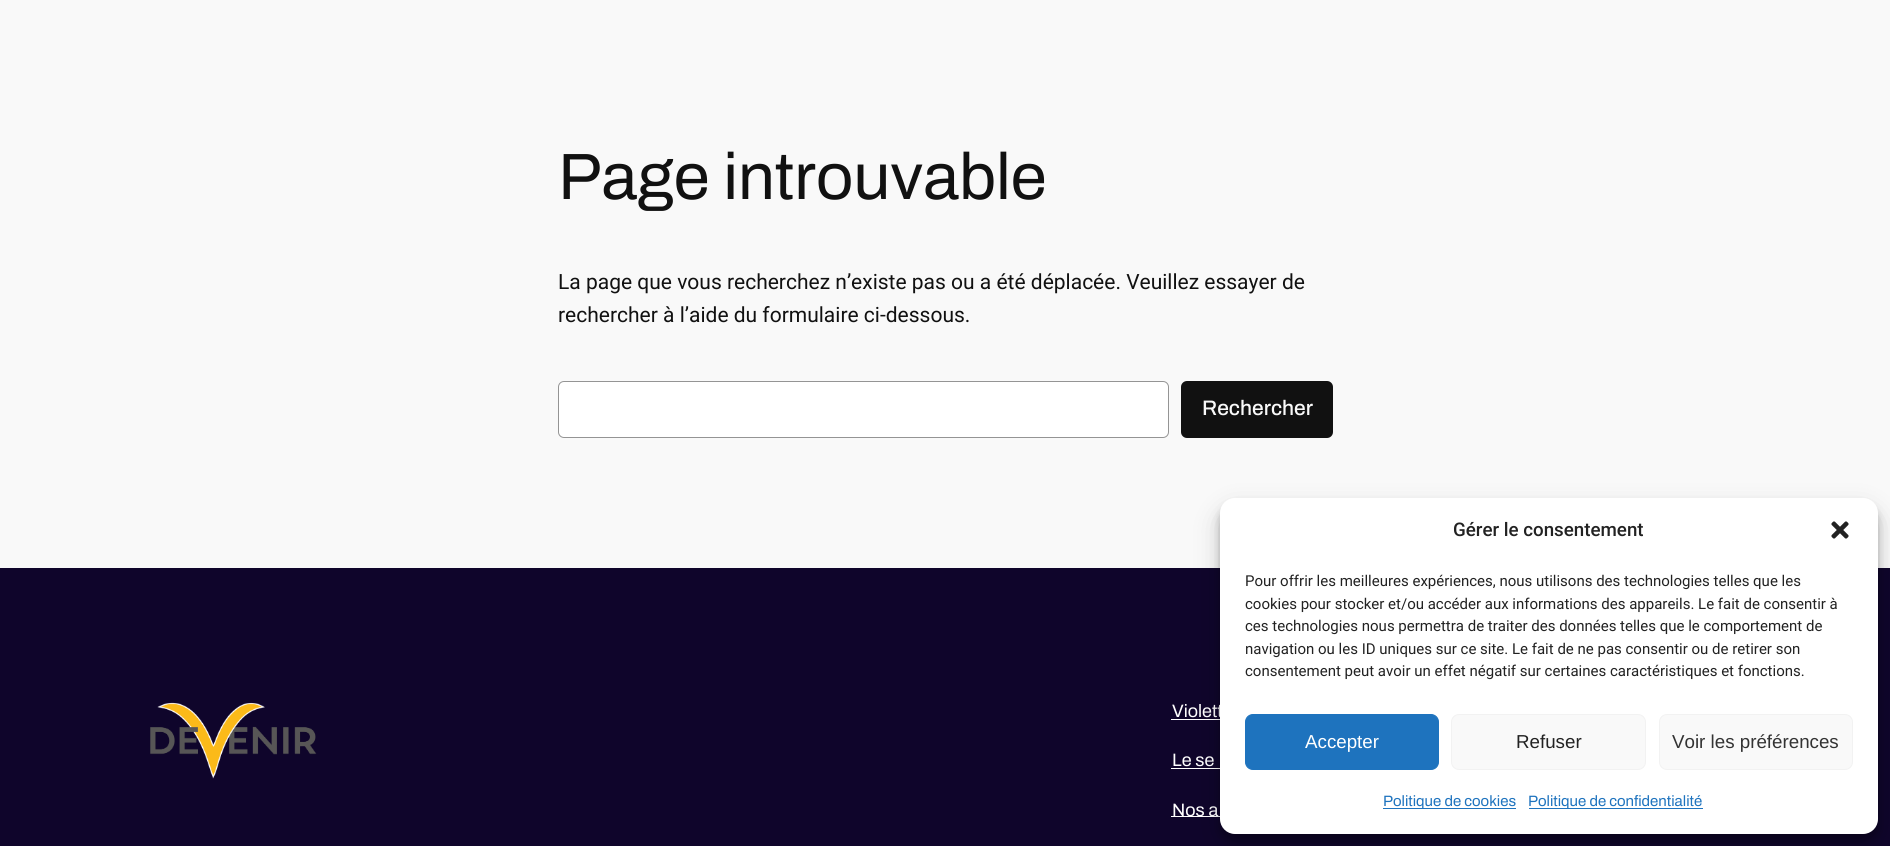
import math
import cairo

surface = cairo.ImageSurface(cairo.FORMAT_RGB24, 1890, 846)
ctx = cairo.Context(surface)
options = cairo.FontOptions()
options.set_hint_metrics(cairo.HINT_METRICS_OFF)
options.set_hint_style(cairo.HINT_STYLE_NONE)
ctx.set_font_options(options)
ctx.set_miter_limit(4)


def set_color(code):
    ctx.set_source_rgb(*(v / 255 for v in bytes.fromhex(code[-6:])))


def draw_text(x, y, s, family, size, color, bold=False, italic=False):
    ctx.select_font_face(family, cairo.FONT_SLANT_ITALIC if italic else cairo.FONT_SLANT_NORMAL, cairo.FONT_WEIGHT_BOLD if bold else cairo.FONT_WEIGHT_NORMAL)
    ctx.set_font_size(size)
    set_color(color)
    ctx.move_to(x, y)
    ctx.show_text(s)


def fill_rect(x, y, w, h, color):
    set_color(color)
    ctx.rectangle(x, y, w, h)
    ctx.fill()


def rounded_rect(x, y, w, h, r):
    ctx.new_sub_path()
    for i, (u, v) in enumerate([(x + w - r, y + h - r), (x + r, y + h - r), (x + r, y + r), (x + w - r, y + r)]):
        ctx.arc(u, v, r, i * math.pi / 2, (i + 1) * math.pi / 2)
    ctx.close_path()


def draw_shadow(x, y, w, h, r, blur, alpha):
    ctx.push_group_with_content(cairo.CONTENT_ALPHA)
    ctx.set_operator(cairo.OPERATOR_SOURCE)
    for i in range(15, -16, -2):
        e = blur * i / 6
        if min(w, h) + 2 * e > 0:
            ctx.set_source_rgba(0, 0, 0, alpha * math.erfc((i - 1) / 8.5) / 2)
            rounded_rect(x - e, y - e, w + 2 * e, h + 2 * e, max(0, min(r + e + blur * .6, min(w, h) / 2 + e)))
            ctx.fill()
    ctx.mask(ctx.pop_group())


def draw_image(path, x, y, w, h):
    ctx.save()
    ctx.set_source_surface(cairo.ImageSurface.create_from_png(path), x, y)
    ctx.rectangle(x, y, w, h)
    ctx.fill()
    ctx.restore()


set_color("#f9f9f9")
ctx.paint()
draw_text(558, 199, "Page introuvable", "Archivo", 65.5, "#111111")
draw_text(558, 289, "La page que vous recherchez n’existe pas ou a été déplacée. Veuillez essayer de", "Roboto", 21, "#111111")
draw_text(558, 322, "rechercher à l’aide du formulaire ci-dessous.", "Roboto", 21, "#111111")
set_color("#ffffff")
rounded_rect(558.5, 381.5, 610, 56, 5.5)
ctx.fill_preserve()
set_color("#949494")
ctx.set_line_width(1)
ctx.stroke()
set_color("#111111")
rounded_rect(1181, 381, 152, 57, 6)
ctx.fill()
draw_text(1202, 415, "Rechercher", "Archivo Medium", 21, "#f9f9f9")
fill_rect(0, 568, 1890, 278, "#0f052b")
draw_image("assets/img1.png", 150, 702, 167, 77)
draw_text(1172, 717, "Violett", "Archivo", 18, "#ffffff")
fill_rect(1171, 719, 49, 1, "#ffffff")
draw_text(1172, 766, "Le se", "Archivo", 18, "#ffffff")
fill_rect(1171, 768, 49, 1, "#ffffff")
fill_rect(1171, 816, 49, 1, "#ffffff")
draw_text(1172, 816, "Nos a", "Archivo", 18, "#ffffff")
set_color("#000000")
draw_shadow(1220, 505, 658, 336, 15, 4, 0.23)
draw_shadow(1220, 510, 658, 336, 15, 12.5, 0.19)
set_color("#ffffff")
rounded_rect(1220, 498, 658, 336, 15)
ctx.fill()
draw_text(1453, 536, "Gérer le consentement", "Roboto Medium", 18.75, "#222222")
draw_image("assets/img2.png", 1831, 521, 18, 18)
draw_text(1245, 586, "Pour offrir les meilleures expériences, nous utilisons des technologies telles que les", "Roboto", 15, "#222222")
draw_text(1245, 609, "cookies pour stocker et/ou accéder aux informations des appareils. Le fait de consentir à", "Roboto", 15, "#222222")
draw_text(1245, 631, "ces technologies nous permettra de traiter des données telles que le comportement de", "Roboto", 15, "#222222")
draw_text(1245, 654, "navigation ou les ID uniques sur ce site. Le fait de ne pas consentir ou de retirer son", "Roboto", 15, "#222222")
draw_text(1245, 676, "consentement peut avoir un effet négatif sur certaines caractéristiques et fonctions.", "Roboto", 15, "#222222")
set_color("#1e73be")
rounded_rect(1245.5, 714.5, 193, 55, 7.5)
ctx.fill_preserve()
ctx.stroke()
draw_text(1305, 748, "Accepter", "Liberation Sans", 18.75, "#ffffff")
set_color("#f9f9f9")
rounded_rect(1451.5, 714.5, 194, 55, 7.5)
ctx.fill_preserve()
set_color("#f2f2f2")
ctx.stroke()
draw_text(1516, 748, "Refuser", "Liberation Sans", 18.75, "#222222")
set_color("#f9f9f9")
rounded_rect(1659.5, 714.5, 193, 55, 7.5)
ctx.fill_preserve()
set_color("#f2f2f2")
ctx.stroke()
draw_text(1672, 748, "Voir les préférences", "Liberation Sans", 18.75, "#333333")
fill_rect(1383, 808, 133, 1, "#1e73be")
draw_text(1383, 806, "Politique de cookies", "Archivo", 15, "#1e73be")
fill_rect(1529, 808, 174, 1, "#1e73be")
draw_text(1528, 806, "Politique de confidentialité", "Archivo", 15, "#1e73be")
surface.write_to_png("output.png")
